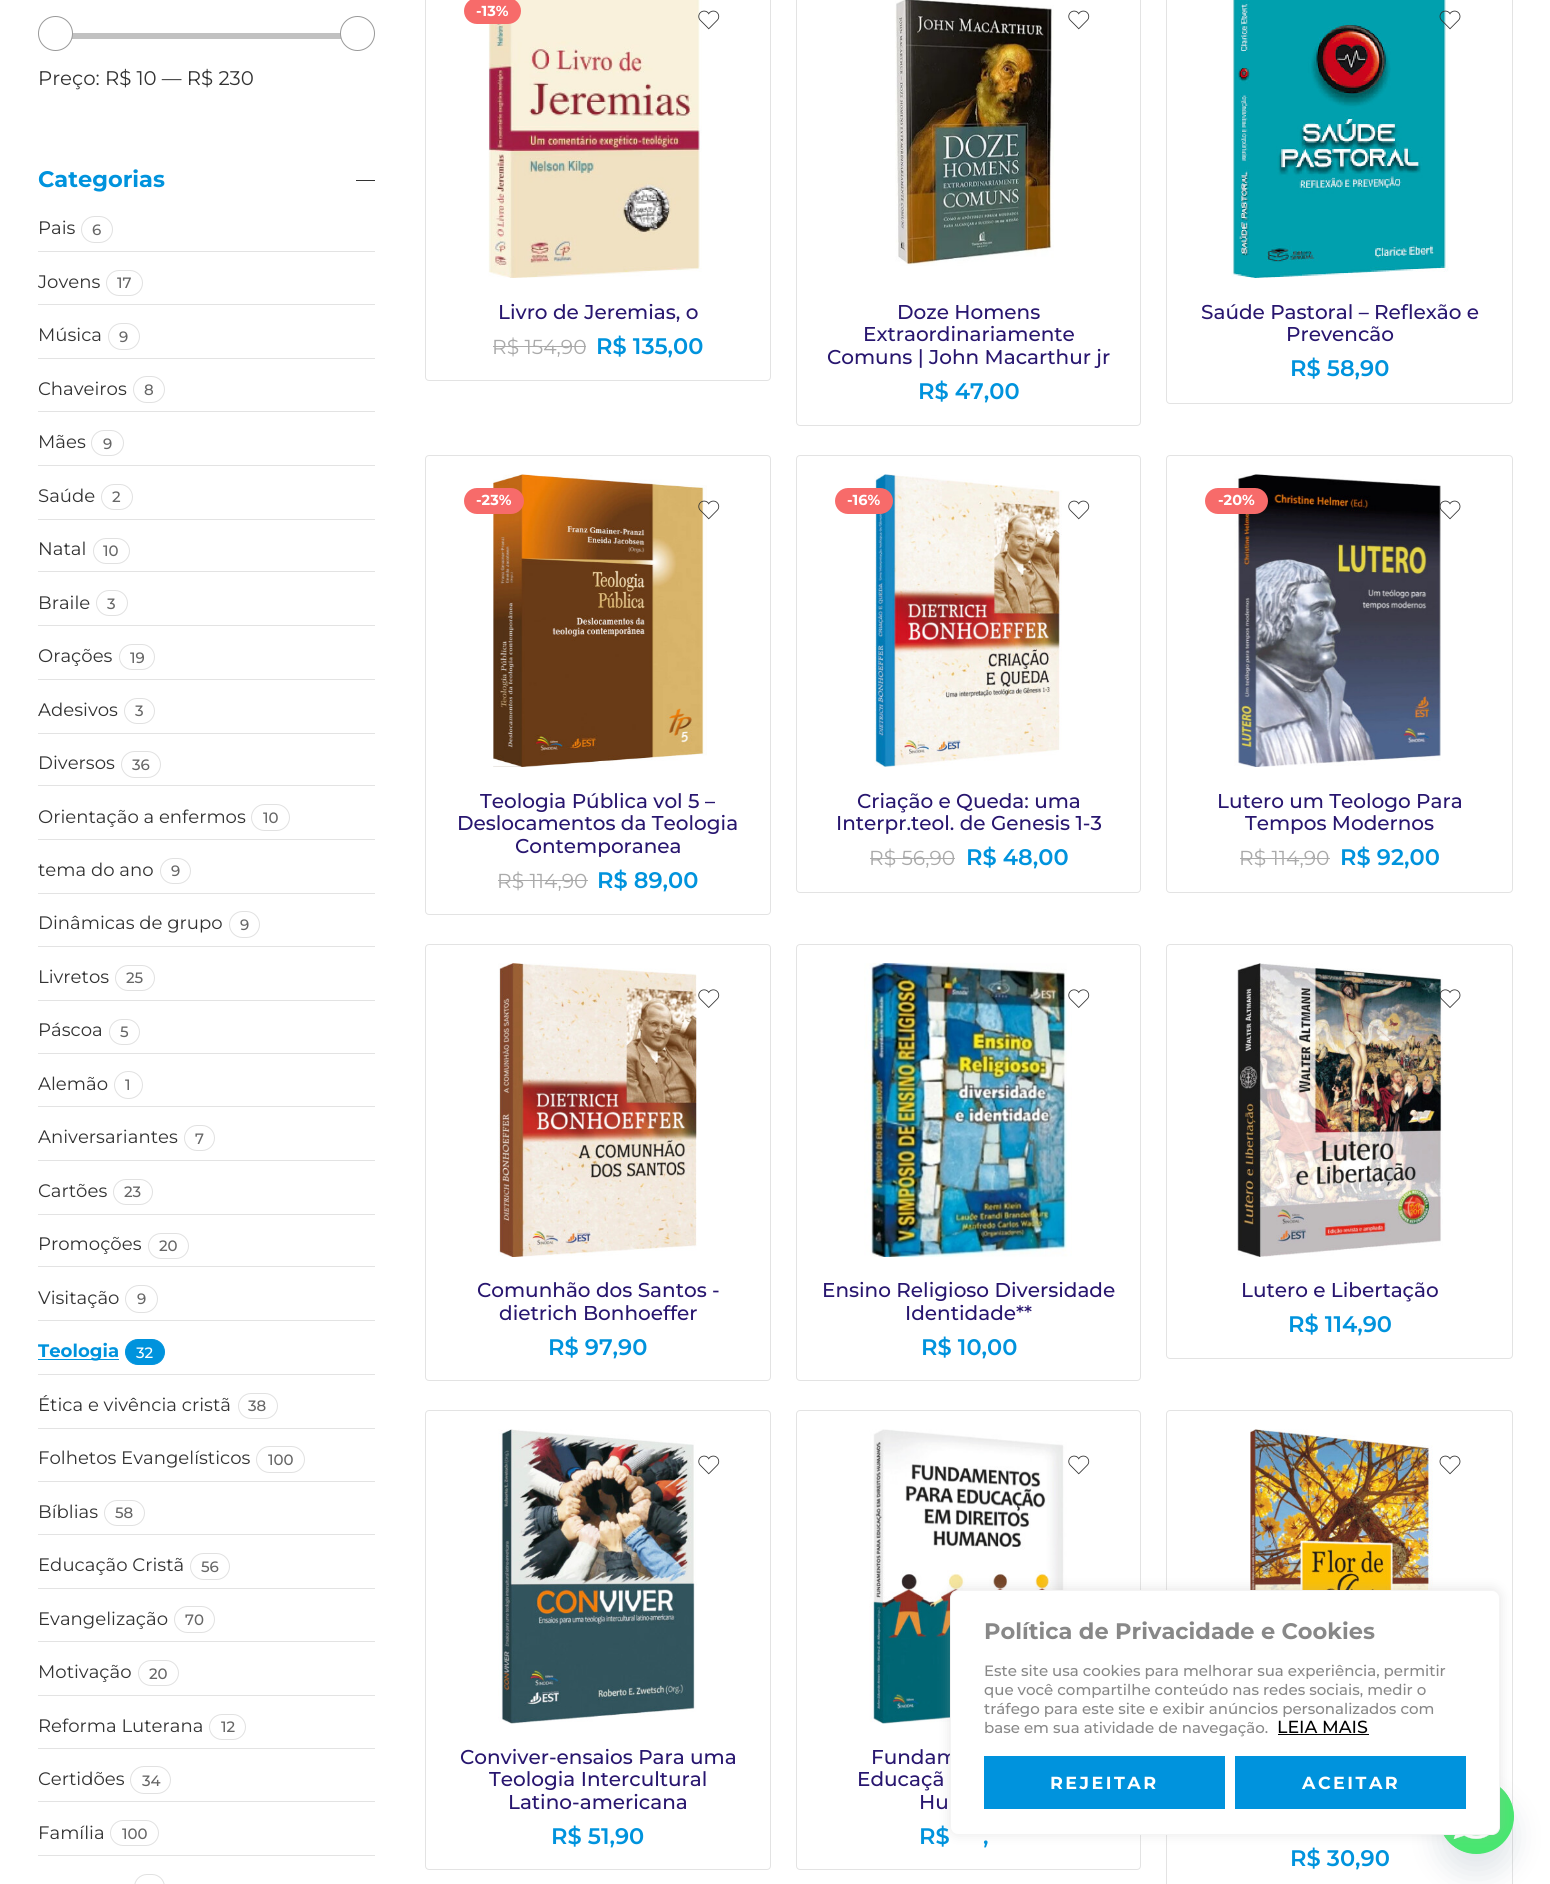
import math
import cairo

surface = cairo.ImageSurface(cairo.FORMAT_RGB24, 1550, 1884)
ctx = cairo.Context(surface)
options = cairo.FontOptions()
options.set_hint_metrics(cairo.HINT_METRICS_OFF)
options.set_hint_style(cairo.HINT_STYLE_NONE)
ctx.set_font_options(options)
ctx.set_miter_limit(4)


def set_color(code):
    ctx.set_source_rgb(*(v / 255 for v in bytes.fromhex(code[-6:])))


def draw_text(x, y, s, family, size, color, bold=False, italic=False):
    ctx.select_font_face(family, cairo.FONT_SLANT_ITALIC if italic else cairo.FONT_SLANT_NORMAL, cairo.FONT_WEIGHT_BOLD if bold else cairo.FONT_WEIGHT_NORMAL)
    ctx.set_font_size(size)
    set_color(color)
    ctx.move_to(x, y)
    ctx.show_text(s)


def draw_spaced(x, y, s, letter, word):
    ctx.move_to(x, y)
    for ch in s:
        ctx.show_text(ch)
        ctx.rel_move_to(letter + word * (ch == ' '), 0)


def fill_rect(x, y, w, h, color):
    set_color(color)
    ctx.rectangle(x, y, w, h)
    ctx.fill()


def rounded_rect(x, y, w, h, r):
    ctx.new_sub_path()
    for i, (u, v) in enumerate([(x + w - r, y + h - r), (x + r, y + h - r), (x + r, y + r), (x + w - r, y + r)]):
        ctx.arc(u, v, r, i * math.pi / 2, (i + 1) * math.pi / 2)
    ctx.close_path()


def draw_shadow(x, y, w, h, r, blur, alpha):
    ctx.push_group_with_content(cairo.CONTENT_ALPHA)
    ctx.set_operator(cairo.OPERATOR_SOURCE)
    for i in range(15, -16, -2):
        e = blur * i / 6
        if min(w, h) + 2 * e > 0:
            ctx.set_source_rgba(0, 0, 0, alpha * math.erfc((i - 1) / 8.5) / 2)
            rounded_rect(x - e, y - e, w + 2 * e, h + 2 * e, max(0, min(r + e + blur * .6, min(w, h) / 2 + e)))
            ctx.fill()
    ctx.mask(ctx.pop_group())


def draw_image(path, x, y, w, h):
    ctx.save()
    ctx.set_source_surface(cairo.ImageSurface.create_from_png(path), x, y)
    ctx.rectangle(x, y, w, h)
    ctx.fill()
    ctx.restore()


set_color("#ffffff")
ctx.paint()
fill_rect(72, 33, 269, 6, "#c1c1c1")
set_color("#ffffff")
ctx.arc(55.5, 33.5, 17, 0, 2 * math.pi)
ctx.fill_preserve()
set_color("#999999")
ctx.set_line_width(1)
ctx.stroke()
set_color("#ffffff")
ctx.arc(357.5, 33.5, 17, 0, 2 * math.pi)
ctx.fill_preserve()
set_color("#999999")
ctx.stroke()
draw_text(38, 85, "Preço: R$ 10 — R$ 230", "Montserrat Thin", 19.75, "#333333")
draw_text(38, 187, "Categorias", "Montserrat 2 Thin", 22.5, "#0093dd")
fill_rect(356, 180, 19, 1, "#333333")
fill_rect(38, 251, 337, 1, "#e3e3e3")
draw_text(38, 234, "Pais", "Montserrat Thin", 18.1, "#333333")
rounded_rect(81.5, 216.5, 31, 26, 13)
set_color("#e1e1e1")
ctx.stroke()
draw_text(92, 235, "6", "Montserrat Medium", 15, "#666666")
fill_rect(38, 304, 337, 1, "#e3e3e3")
draw_text(38, 288, "Jovens", "Montserrat Thin", 18.1, "#333333")
rounded_rect(106.5, 270.5, 36, 25, 12.5)
set_color("#e1e1e1")
ctx.stroke()
draw_text(117, 288, "17", "Montserrat Medium", 15, "#666666")
fill_rect(38, 358, 337, 1, "#e3e3e3")
draw_text(38, 341, "Música", "Montserrat Thin", 18.1, "#333333")
rounded_rect(108.5, 323.5, 31, 26, 13)
set_color("#e1e1e1")
ctx.stroke()
draw_text(119, 342, "9", "Montserrat Medium", 15, "#666666")
fill_rect(38, 411, 337, 1, "#e3e3e3")
draw_text(38, 395, "Chaveiros", "Montserrat Thin", 18.1, "#333333")
rounded_rect(133.5, 376.5, 31, 26, 13)
set_color("#e1e1e1")
ctx.stroke()
draw_text(144, 395, "8", "Montserrat Medium", 15, "#666666")
fill_rect(38, 465, 337, 1, "#e3e3e3")
draw_text(38, 448, "Mães", "Montserrat Thin", 18.1, "#333333")
rounded_rect(91.5, 430.5, 32, 25, 12.5)
set_color("#e1e1e1")
ctx.stroke()
draw_text(103, 449, "9", "Montserrat Medium", 15, "#666666")
fill_rect(38, 519, 337, 1, "#e3e3e3")
draw_text(38, 502, "Saúde", "Montserrat Thin", 18.1, "#333333")
rounded_rect(101.5, 484.5, 31, 25, 12.5)
set_color("#e1e1e1")
ctx.stroke()
draw_text(112, 502, "2", "Montserrat Medium", 15, "#666666")
fill_rect(38, 571, 337, 1, "#e3e3e3")
draw_text(38, 555, "Natal", "Montserrat Thin", 18.1, "#333333")
rounded_rect(93.5, 538.5, 36, 25, 12.5)
set_color("#e1e1e1")
ctx.stroke()
draw_text(103, 556, "10", "Montserrat Medium", 15, "#666666")
fill_rect(38, 625, 337, 1, "#e3e3e3")
draw_text(38, 609, "Braile", "Montserrat Thin", 18.1, "#333333")
rounded_rect(96.5, 590.5, 31, 25, 12.5)
set_color("#e1e1e1")
ctx.stroke()
draw_text(107, 609, "3", "Montserrat Medium", 15, "#666666")
fill_rect(38, 679, 337, 1, "#e3e3e3")
draw_text(38, 662, "Orações", "Montserrat Thin", 18.1, "#333333")
rounded_rect(119.5, 644.5, 35, 25, 12.5)
set_color("#e1e1e1")
ctx.stroke()
draw_text(130, 663, "19", "Montserrat Medium", 15, "#666666")
fill_rect(38, 733, 337, 1, "#e3e3e3")
draw_text(38, 716, "Adesivos", "Montserrat Thin", 18.1, "#333333")
rounded_rect(124.5, 698.5, 30, 25, 12.5)
set_color("#e1e1e1")
ctx.stroke()
draw_text(135, 716, "3", "Montserrat Medium", 15, "#666666")
fill_rect(38, 785, 337, 1, "#e3e3e3")
draw_text(38, 769, "Diversos", "Montserrat Thin", 18.1, "#333333")
rounded_rect(121.5, 751.5, 39, 26, 13)
set_color("#e1e1e1")
ctx.stroke()
draw_text(132, 770, "36", "Montserrat Medium", 15, "#666666")
fill_rect(38, 839, 337, 1, "#e3e3e3")
draw_text(38, 823, "Orientação a enfermos", "Montserrat Thin", 18.1, "#333333")
rounded_rect(251.5, 804.5, 38, 26, 13)
set_color("#e1e1e1")
ctx.stroke()
draw_text(263, 823, "10", "Montserrat Medium", 15, "#666666")
fill_rect(38, 893, 337, 1, "#e3e3e3")
draw_text(38, 876, "tema do ano", "Montserrat Thin", 18.1, "#333333")
rounded_rect(160.5, 858.5, 30, 25, 12.5)
set_color("#e1e1e1")
ctx.stroke()
draw_text(171, 876, "9", "Montserrat Medium", 15, "#666666")
fill_rect(38, 946, 337, 1, "#e3e3e3")
draw_text(38, 929, "Dinâmicas de grupo", "Montserrat Thin", 18.1, "#333333")
rounded_rect(229.5, 911.5, 30, 26, 13)
set_color("#e1e1e1")
ctx.stroke()
draw_text(240, 930, "9", "Montserrat Medium", 15, "#666666")
fill_rect(38, 1000, 337, 1, "#e3e3e3")
draw_text(38, 983, "Livretos", "Montserrat Thin", 18.1, "#333333")
rounded_rect(115.5, 965.5, 39, 25, 12.5)
set_color("#e1e1e1")
ctx.stroke()
draw_text(126, 983, "25", "Montserrat Medium", 15, "#666666")
fill_rect(38, 1053, 337, 1, "#e3e3e3")
draw_text(38, 1036, "Páscoa", "Montserrat Thin", 18.1, "#333333")
rounded_rect(109.5, 1019.5, 30, 25, 12.5)
set_color("#e1e1e1")
ctx.stroke()
draw_text(120, 1037, "5", "Montserrat Medium", 15, "#666666")
fill_rect(38, 1106, 337, 1, "#e3e3e3")
draw_text(38, 1090, "Alemão", "Montserrat Thin", 18.1, "#333333")
rounded_rect(114.5, 1071.5, 28, 27, 13.5)
set_color("#e1e1e1")
ctx.stroke()
draw_text(125, 1090, "1", "Montserrat Medium", 15, "#666666")
fill_rect(38, 1160, 337, 1, "#e3e3e3")
draw_text(38, 1143, "Aniversariantes", "Montserrat Thin", 18.1, "#333333")
rounded_rect(184.5, 1125.5, 30, 25, 12.5)
set_color("#e1e1e1")
ctx.stroke()
draw_text(195, 1144, "7", "Montserrat Medium", 15, "#666666")
fill_rect(38, 1214, 337, 1, "#e3e3e3")
draw_text(38, 1197, "Cartões", "Montserrat Thin", 18.1, "#333333")
rounded_rect(113.5, 1179.5, 39, 25, 12.5)
set_color("#e1e1e1")
ctx.stroke()
draw_text(124, 1197, "23", "Montserrat Medium", 15, "#666666")
fill_rect(38, 1266, 337, 1, "#e3e3e3")
draw_text(38, 1250, "Promoções", "Montserrat Thin", 18.1, "#333333")
rounded_rect(148.5, 1233.5, 40, 25, 12.5)
set_color("#e1e1e1")
ctx.stroke()
draw_text(159, 1251, "20", "Montserrat Medium", 15, "#666666")
fill_rect(38, 1320, 337, 1, "#e3e3e3")
draw_text(38, 1304, "Visitação", "Montserrat Thin", 18.1, "#333333")
rounded_rect(125.5, 1285.5, 32, 27, 13.5)
set_color("#e1e1e1")
ctx.stroke()
draw_text(137, 1304, "9", "Montserrat Medium", 15, "#666666")
fill_rect(38, 1374, 337, 1, "#e3e3e3")
fill_rect(38, 1359, 81, 1, "#0093dd")
draw_text(38, 1357, "Teologia", "Montserrat 2 Thin", 18.1, "#0093dd")
rounded_rect(125.5, 1339.5, 39, 25, 12.5)
ctx.fill_preserve()
ctx.stroke()
draw_text(136, 1358, "32", "Montserrat Medium", 15, "#ffffff")
fill_rect(38, 1428, 337, 1, "#e3e3e3")
draw_text(38, 1411, "Ética e vivência cristã", "Montserrat Thin", 18.1, "#333333")
rounded_rect(238.5, 1393.5, 39, 25, 12.5)
set_color("#e1e1e1")
ctx.stroke()
draw_text(248, 1411, "38", "Montserrat Medium", 15, "#666666")
fill_rect(38, 1481, 337, 1, "#e3e3e3")
draw_text(38, 1464, "Folhetos Evangelísticos", "Montserrat Thin", 18.1, "#333333")
rounded_rect(256.5, 1446.5, 48, 26, 13)
set_color("#e1e1e1")
ctx.stroke()
draw_text(268, 1465, "100", "Montserrat Medium", 15, "#666666")
fill_rect(38, 1534, 337, 1, "#e3e3e3")
draw_text(38, 1518, "Bíblias", "Montserrat Thin", 18.1, "#333333")
rounded_rect(104.5, 1500.5, 40, 25, 12.5)
set_color("#e1e1e1")
ctx.stroke()
draw_text(115, 1518, "58", "Montserrat Medium", 15, "#666666")
fill_rect(38, 1588, 337, 1, "#e3e3e3")
draw_text(38, 1571, "Educação Cristã", "Montserrat Thin", 18.1, "#333333")
rounded_rect(190.5, 1553.5, 39, 26, 13)
set_color("#e1e1e1")
ctx.stroke()
draw_text(201, 1572, "56", "Montserrat Medium", 15, "#666666")
fill_rect(38, 1641, 337, 1, "#e3e3e3")
draw_text(38, 1625, "Evangelização", "Montserrat Thin", 18.1, "#333333")
rounded_rect(174.5, 1606.5, 40, 26, 13)
set_color("#e1e1e1")
ctx.stroke()
draw_text(185, 1625, "70", "Montserrat Medium", 15, "#666666")
fill_rect(38, 1695, 337, 1, "#e3e3e3")
draw_text(38, 1678, "Motivação", "Montserrat Thin", 18.1, "#333333")
rounded_rect(138.5, 1660.5, 40, 25, 12.5)
set_color("#e1e1e1")
ctx.stroke()
draw_text(149, 1679, "20", "Montserrat Medium", 15, "#666666")
fill_rect(38, 1748, 337, 1, "#e3e3e3")
draw_text(38, 1732, "Reforma Luterana", "Montserrat Thin", 18.1, "#333333")
rounded_rect(209.5, 1714.5, 36, 25, 12.5)
set_color("#e1e1e1")
ctx.stroke()
draw_text(221, 1732, "12", "Montserrat Medium", 15, "#666666")
fill_rect(38, 1801, 337, 1, "#e3e3e3")
draw_text(38, 1785, "Certidões", "Montserrat Thin", 18.1, "#333333")
rounded_rect(130.5, 1766.5, 40, 27, 13.5)
set_color("#e1e1e1")
ctx.stroke()
draw_text(142, 1786, "34", "Montserrat Medium", 15, "#666666")
fill_rect(38, 1855, 337, 1, "#e3e3e3")
draw_text(38, 1839, "Família", "Montserrat Thin", 18.1, "#333333")
rounded_rect(110.5, 1820.5, 48, 25, 12.5)
set_color("#e1e1e1")
ctx.stroke()
draw_text(122, 1839, "100", "Montserrat Medium", 15, "#666666")
rounded_rect(134.5, 1874.5, 30, 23, 12.5)
set_color("#e1e1e1")
ctx.stroke()
rounded_rect(425.5, -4.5, 345, 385, 3.5)
set_color("#e3e3e3")
ctx.stroke()
draw_image("assets/img1.png", 488, 0, 214, 278)
set_color("#f76b6a")
rounded_rect(464, -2, 57, 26, 13)
ctx.fill()
draw_text(476, 16, "-13%", "Montserrat 2 Thin", 14.5, "#ffffff")
draw_image("assets/img2.png", 698, 10, 22, 20)
draw_text(498, 319, "Livro de Jeremias, o", "Montserrat Medium", 20, "#28166f")
draw_text(492, 354, "R$ 154,90", "Montserrat Thin", 20.25, "#aaaaaa")
fill_rect(493, 346, 93, 1, "#aaaaaa")
draw_text(596, 354, "R$ 135,00", "Montserrat SemiBold", 22.5, "#0093dd")
rounded_rect(796.5, -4.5, 344, 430, 3.5)
set_color("#e3e3e3")
ctx.stroke()
draw_image("assets/img3.png", 895, 0, 159, 266)
draw_image("assets/img4.png", 1068, 10, 22, 20)
draw_text(897, 319, "Doze Homens", "Montserrat Medium", 20, "#28166f")
draw_text(863, 341, "Extraordinariamente", "Montserrat Medium", 20, "#28166f")
draw_text(827, 364, "Comuns | John Macarthur jr", "Montserrat Medium", 20, "#28166f")
draw_text(918, 399, "R$ 47,00", "Montserrat SemiBold", 22.5, "#0093dd")
rounded_rect(1166.5, -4.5, 346, 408, 3.5)
set_color("#e3e3e3")
ctx.stroke()
draw_image("assets/img5.png", 1231, 0, 218, 278)
draw_image("assets/img6.png", 1439, 10, 22, 20)
draw_text(1201, 319, "Saúde Pastoral – Reflexão e", "Montserrat Medium", 20, "#28166f")
draw_text(1286, 341, "Prevencão", "Montserrat Medium", 20, "#28166f")
draw_text(1290, 376, "R$ 58,90", "Montserrat SemiBold", 22.5, "#0093dd")
rounded_rect(425.5, 455.5, 345, 459, 3.5)
set_color("#e3e3e3")
ctx.stroke()
draw_image("assets/img7.png", 493, 474, 214, 293)
set_color("#f76b6a")
rounded_rect(464, 488, 60, 26, 13)
ctx.fill()
draw_text(476, 505, "-23%", "Montserrat 2 Thin", 14.5, "#ffffff")
draw_image("assets/img8.png", 698, 500, 22, 20)
draw_text(480, 808, "Teologia Pública vol 5 –", "Montserrat Medium", 20, "#28166f")
draw_text(457, 830, "Deslocamentos da Teologia", "Montserrat Medium", 20, "#28166f")
draw_text(515, 853, "Contemporanea", "Montserrat Medium", 20, "#28166f")
draw_text(497, 888, "R$ 114,90", "Montserrat Thin", 20.25, "#aaaaaa")
fill_rect(498, 880, 90, 1, "#aaaaaa")
draw_text(597, 888, "R$ 89,00", "Montserrat SemiBold", 22.5, "#0093dd")
rounded_rect(796.5, 455.5, 344, 437, 3.5)
set_color("#e3e3e3")
ctx.stroke()
draw_image("assets/img9.png", 874, 474, 188, 293)
set_color("#f76b6a")
rounded_rect(835, 488, 58, 26, 13)
ctx.fill()
draw_text(847, 505, "-16%", "Montserrat 2 Thin", 14.5, "#ffffff")
draw_image("assets/img4.png", 1068, 500, 22, 20)
draw_text(857, 808, "Criação e Queda: uma", "Montserrat Medium", 20, "#28166f")
draw_text(836, 830, "Interpr.teol. de Genesis 1-3", "Montserrat Medium", 20, "#28166f")
draw_text(869, 865, "R$ 56,90", "Montserrat Thin", 20.25, "#aaaaaa")
fill_rect(870, 858, 85, 1, "#aaaaaa")
draw_text(966, 865, "R$ 48,00", "Montserrat SemiBold", 22.5, "#0093dd")
rounded_rect(1166.5, 455.5, 346, 437, 3.5)
set_color("#e3e3e3")
ctx.stroke()
draw_image("assets/img10.png", 1234, 474, 207, 293)
set_color("#f76b6a")
rounded_rect(1205, 488, 63, 26, 13)
ctx.fill()
draw_text(1218, 505, "-20%", "Montserrat 2 Thin", 14.5, "#ffffff")
draw_image("assets/img11.png", 1439, 500, 22, 20)
draw_text(1217, 808, "Lutero um Teologo Para", "Montserrat Medium", 20, "#28166f")
draw_text(1245, 830, "Tempos Modernos", "Montserrat Medium", 20, "#28166f")
draw_text(1239, 865, "R$ 114,90", "Montserrat Thin", 20.25, "#aaaaaa")
fill_rect(1240, 858, 90, 1, "#aaaaaa")
draw_text(1340, 865, "R$ 92,00", "Montserrat SemiBold", 22.5, "#0093dd")
rounded_rect(425.5, 944.5, 345, 436, 3.5)
set_color("#e3e3e3")
ctx.stroke()
draw_image("assets/img12.png", 498, 963, 199, 294)
draw_image("assets/img13.png", 698, 989, 22, 19)
draw_text(477, 1297, "Comunhão dos Santos -", "Montserrat Medium", 20, "#28166f")
draw_text(499, 1320, "dietrich Bonhoeffer", "Montserrat Medium", 20, "#28166f")
draw_text(548, 1355, "R$ 97,90", "Montserrat SemiBold", 22.5, "#0093dd")
rounded_rect(796.5, 944.5, 344, 436, 3.5)
set_color("#e3e3e3")
ctx.stroke()
draw_image("assets/img14.png", 864, 963, 208, 294)
draw_image("assets/img15.png", 1068, 989, 22, 19)
draw_text(822, 1297, "Ensino Religioso Diversidade", "Montserrat Medium", 20, "#28166f")
draw_text(905, 1320, "Identidade**", "Montserrat Medium", 20, "#28166f")
draw_text(921, 1355, "R$ 10,00", "Montserrat SemiBold", 22.5, "#0093dd")
rounded_rect(1166.5, 944.5, 346, 414, 3.5)
set_color("#e3e3e3")
ctx.stroke()
draw_image("assets/img16.png", 1237, 963, 206, 294)
draw_image("assets/img17.png", 1439, 989, 22, 19)
draw_text(1241, 1297, "Lutero e Libertação", "Montserrat Medium", 20, "#28166f")
draw_text(1288, 1332, "R$ 114,90", "Montserrat SemiBold", 22.5, "#0093dd")
rounded_rect(425.5, 1410.5, 345, 459, 3.5)
set_color("#e3e3e3")
ctx.stroke()
draw_image("assets/img18.png", 498, 1429, 199, 295)
draw_image("assets/img4.png", 698, 1455, 22, 20)
draw_text(460, 1764, "Conviver-ensaios Para uma", "Montserrat Medium", 20, "#28166f")
draw_text(489, 1786, "Teologia Intercultural", "Montserrat Medium", 20, "#28166f")
draw_text(508, 1809, "Latino-americana", "Montserrat Medium", 20, "#28166f")
draw_text(551, 1844, "R$ 51,90", "Montserrat SemiBold", 22.5, "#0093dd")
rounded_rect(796.5, 1410.5, 344, 459, 3.5)
set_color("#e3e3e3")
ctx.stroke()
draw_image("assets/img19.png", 869, 1429, 198, 295)
draw_image("assets/img4.png", 1068, 1455, 22, 20)
draw_text(871, 1764, "Fundam", "Montserrat Medium", 20, "#28166f")
draw_text(857, 1786, "Educaçã", "Montserrat Medium", 20, "#28166f")
draw_text(919, 1809, "Hu", "Montserrat Medium", 20, "#28166f")
draw_text(919, 1844, "R$", "Montserrat SemiBold", 22.5, "#0093dd")
draw_text(983, 1844, ",", "Montserrat SemiBold", 22.5, "#0093dd")
rounded_rect(1166.5, 1410.5, 346, 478, 3.5)
set_color("#e3e3e3")
ctx.stroke()
draw_image("assets/img20.png", 1250, 1429, 183, 161)
draw_image("assets/img21.png", 1439, 1455, 22, 20)
draw_text(1290, 1866, "R$ 30,90", "Montserrat SemiBold", 22.5, "#0093dd")
set_color("#49687e")
draw_shadow(1439, 1799, 75, 75, 37.5, 15, 0.16)
set_color("#49e670")
ctx.arc(1476.5, 1816.5, 37.5, 0, 2 * math.pi)
ctx.fill()
draw_image("assets/img22.png", 1443, 1787, 71, 67)
set_color("#acabab")
draw_shadow(950, 1589, 550, 245, 8, 6, 0.3)
set_color("#ffffff")
rounded_rect(950.5, 1590.5, 549, 244, 7.5)
ctx.fill_preserve()
set_color("#f4f4f4")
ctx.stroke()
draw_text(984, 1639, "Política de Privacidade e Cookies", "Montserrat 2 Thin", 22.5, "#888888")
draw_text(984, 1676, "Este site usa cookies para melhorar sua experiência, permitir", "Montserrat Medium", 15, "#888888")
draw_text(984, 1695, "que você compartilhe conteúdo nas redes sociais, medir o", "Montserrat Medium", 15, "#888888")
draw_text(984, 1714, "tráfego para este site e exibir anúncios personalizados com", "Montserrat Medium", 15, "#888888")
draw_text(984, 1733, "base em sua atividade de navegação.", "Montserrat Medium", 15, "#888888")
draw_text(1277, 1733, "LEIA MAIS", "Montserrat Medium", 17.5, "#000000")
fill_rect(1278, 1734, 91, 1, "#000000")
fill_rect(984, 1756, 241, 53, "#0093dd")
ctx.select_font_face("Montserrat 2 Thin")
set_color("#ffffff")
draw_spaced(1050, 1789, "REJEITAR", 2.5, 0)
fill_rect(1235, 1756, 231, 53, "#0093dd")
set_color("#ffffff")
draw_spaced(1302, 1789, "ACEITAR", 2.5, 0)
surface.write_to_png("output.png")
